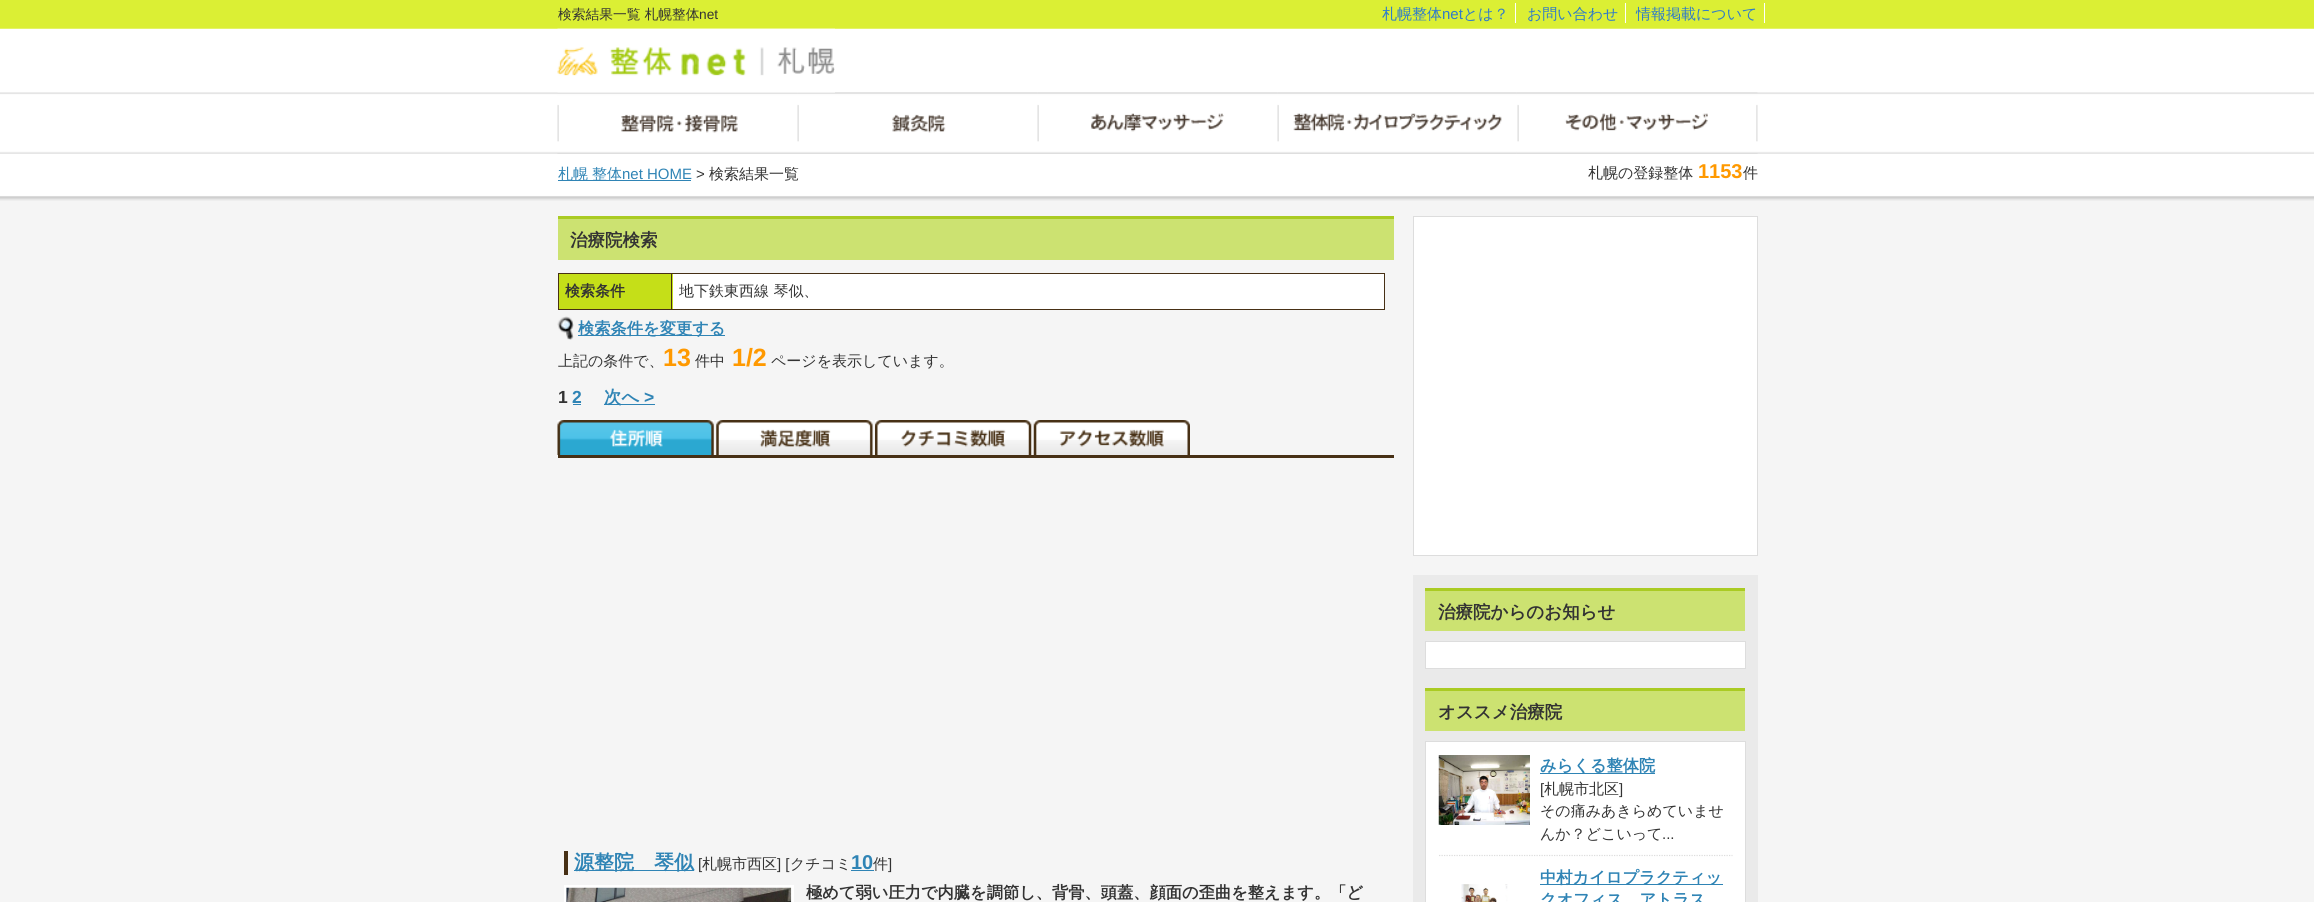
import math
import cairo

surface = cairo.ImageSurface(cairo.FORMAT_RGB24, 2314, 902)
ctx = cairo.Context(surface)
options = cairo.FontOptions()
options.set_hint_metrics(cairo.HINT_METRICS_OFF)
options.set_hint_style(cairo.HINT_STYLE_NONE)
ctx.set_font_options(options)
ctx.set_miter_limit(4)


def set_color(code):
    ctx.set_source_rgb(*(v / 255 for v in bytes.fromhex(code[-6:])))


def draw_text(x, y, s, family, size, color, bold=False, italic=False):
    ctx.select_font_face(family, cairo.FONT_SLANT_ITALIC if italic else cairo.FONT_SLANT_NORMAL, cairo.FONT_WEIGHT_BOLD if bold else cairo.FONT_WEIGHT_NORMAL)
    ctx.set_font_size(size)
    set_color(color)
    ctx.move_to(x, y)
    ctx.show_text(s)


def fill_rect(x, y, w, h, color):
    set_color(color)
    ctx.rectangle(x, y, w, h)
    ctx.fill()


def draw_image(path, x, y, w, h):
    ctx.save()
    ctx.set_source_surface(cairo.ImageSurface.create_from_png(path), x, y)
    ctx.rectangle(x, y, w, h)
    ctx.fill()
    ctx.restore()


set_color("#f5f5f5")
ctx.paint()
fill_rect(0, 0, 2314, 29, "#dbef34")
draw_text(558, 19, "検索結果一覧 札幌整体", "WenQuanYi Zen Hei Medium", 13.75, "#333333")
draw_text(699, 19, "net", "Liberation Sans", 13.75, "#333333")
draw_text(1382, 19, "札幌整体", "WenQuanYi Zen Hei Medium", 15, "#2f7bc9")
draw_text(1442, 19, "net", "Liberation Sans", 15, "#2f7bc9")
draw_text(1463, 19, "とは？", "WenQuanYi Zen Hei Medium", 15, "#2f7bc9")
fill_rect(1515, 3, 1, 20, "#ffffff")
draw_text(1527, 19, "お問い合わせ", "WenQuanYi Zen Hei Medium", 15, "#2f7bc9")
fill_rect(1625, 3, 1, 20, "#ffffff")
draw_text(1636, 19, "情報掲載について", "WenQuanYi Zen Hei Medium", 15, "#2f7bc9")
fill_rect(1764, 3, 1, 20, "#ffffff")
draw_image("assets/img1.png", 0, 28, 2314, 173)
draw_image("assets/img3.png", 557, 92, 241, 62)
draw_image("assets/img4.png", 797, 92, 241, 62)
draw_image("assets/img2.png", 557, 28, 278, 65)
draw_image("assets/img5.png", 1037, 92, 241, 62)
draw_image("assets/img6.png", 1277, 92, 239, 62)
draw_image("assets/img7.png", 1516, 92, 242, 62)
fill_rect(558, 180, 133, 1, "#2f84b5")
draw_text(558, 179, "札幌", "WenQuanYi Zen Hei Medium", 15, "#2f84b5")
draw_text(592, 179, "整体", "WenQuanYi Zen Hei Medium", 15, "#2f84b5")
draw_text(622, 179, "net HOME", "Liberation Sans", 15, "#2f84b5")
draw_text(696, 179, ">", "Liberation Sans", 15, "#333333")
draw_text(709, 179, "検索結果一覧", "WenQuanYi Zen Hei Medium", 15, "#333333")
draw_text(1588, 178, "札幌の登録整体", "WenQuanYi Zen Hei Medium", 15, "#333333")
draw_text(1698, 178, "1153", "Liberation Sans", 20, "#ff9900", bold=True)
draw_text(1743, 178, "件", "WenQuanYi Zen Hei Medium", 15, "#333333")
fill_rect(558, 219, 836, 41, "#cce271")
fill_rect(558, 216, 836, 3, "#aacb23")
draw_text(570, 246, "治療院検索", "WenQuanYi Zen Hei", 17.5, "#333333", bold=True)
fill_rect(558, 273, 827, 1, "#473015")
fill_rect(1384, 273, 1, 37, "#473015")
fill_rect(558, 309, 827, 1, "#473015")
fill_rect(558, 273, 1, 37, "#473015")
fill_rect(559, 274, 114, 35, "#c5df18")
draw_text(565, 296, "検索条件", "WenQuanYi Zen Hei", 15, "#333333", bold=True)
fill_rect(673, 274, 711, 35, "#ffffff")
fill_rect(671, 273, 1, 37, "#473015")
draw_text(679, 296, "地下鉄東西線 琴似、", "WenQuanYi Zen Hei Medium", 15, "#333333")
draw_image("assets/img8.png", 557, 316, 17, 24)
fill_rect(578, 335, 147, 1, "#2f84b5")
draw_text(578, 334, "検索条件を変更する", "WenQuanYi Zen Hei", 16.25, "#2f84b5", bold=True)
draw_text(558, 366, "上記の条件で、", "WenQuanYi Zen Hei Medium", 15, "#333333")
draw_text(663, 366, "13", "Liberation Sans", 25, "#ff9900", bold=True)
draw_text(695, 366, "件中", "WenQuanYi Zen Hei Medium", 15, "#333333")
draw_text(732, 366, "1/2", "Liberation Sans", 25, "#ff9900", bold=True)
draw_text(771, 366, "ページを表示しています。", "WenQuanYi Zen Hei Medium", 15, "#333333")
draw_text(558, 403, "1", "Liberation Sans", 17.5, "#333333", bold=True)
draw_text(572, 403, "2", "Liberation Sans", 17.5, "#2f84b5", bold=True)
fill_rect(573, 404, 8, 1, "#2f84b5")
fill_rect(604, 404, 51, 1, "#2f84b5")
draw_text(604, 403, "次へ", "WenQuanYi Zen Hei", 17.5, "#2f84b5", bold=True)
draw_text(644, 403, ">", "Liberation Sans", 17.5, "#2f84b5", bold=True)
fill_rect(558, 455, 836, 3, "#473015")
draw_image("assets/img9.png", 557, 420, 157, 35)
draw_image("assets/img10.png", 716, 420, 157, 35)
draw_image("assets/img11.png", 875, 420, 157, 35)
draw_image("assets/img12.png", 1033, 420, 157, 35)
fill_rect(564, 851, 4, 24, "#473015")
fill_rect(574, 870, 120, 1, "#2f84b5")
draw_text(574, 869, "源整院　琴似", "WenQuanYi Zen Hei", 20, "#2f84b5", bold=True)
draw_text(698, 869, "[", "Liberation Sans", 15, "#333333")
draw_text(702, 869, "札幌市西区", "WenQuanYi Zen Hei Medium", 15, "#333333")
draw_text(777, 869, "] [", "Liberation Sans", 15, "#333333")
draw_text(790, 869, "クチコミ", "WenQuanYi Zen Hei Medium", 15, "#333333")
draw_text(851, 869, "10", "Liberation Sans", 20, "#2f84b5", bold=True)
fill_rect(851, 870, 23, 1, "#2f84b5")
draw_text(873, 869, "件", "WenQuanYi Zen Hei Medium", 15, "#333333")
draw_text(888, 869, "]", "Liberation Sans", 15, "#333333")
ctx.rectangle(565.5, 886.5, 227, 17)
set_color("#ffffff")
ctx.set_line_width(3)
ctx.stroke()
draw_image("assets/img13.png", 566, 887, 226, 15)
draw_text(806, 898, "極めて弱い圧力で内臓を調節し、背骨、頭蓋、顔面の歪曲を整えます。「ど", "WenQuanYi Zen Hei", 16.25, "#333333", bold=True)
set_color("#ffffff")
ctx.rectangle(1413.5, 216.5, 344, 339)
ctx.fill_preserve()
set_color("#dddddd")
ctx.set_line_width(1)
ctx.stroke()
fill_rect(1413, 575, 345, 327, "#eaeaea")
fill_rect(1425, 591, 320, 40, "#cce271")
fill_rect(1425, 588, 320, 3, "#aacb23")
draw_text(1438, 618, "治療院からのお知らせ", "WenQuanYi Zen Hei", 17.5, "#333333", bold=True)
set_color("#ffffff")
ctx.rectangle(1425.5, 641.5, 320, 27)
ctx.fill_preserve()
set_color("#dddddd")
ctx.stroke()
fill_rect(1425, 691, 320, 40, "#cce271")
fill_rect(1425, 688, 320, 3, "#aacb23")
draw_text(1438, 718, "オススメ治療院", "WenQuanYi Zen Hei", 17.5, "#333333", bold=True)
set_color("#ffffff")
ctx.rectangle(1425.5, 741.5, 320, 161)
ctx.fill_preserve()
set_color("#dddddd")
ctx.stroke()
ctx.new_path()
ctx.move_to(1439, 855.5)
ctx.line_to(1732.5, 855.5)
ctx.set_line_width(1.2)
ctx.set_dash([1.25, 1.25])
ctx.stroke()
draw_image("assets/img14.png", 1438, 755, 92, 70)
fill_rect(1540, 773, 115, 1, "#2f84b5")
draw_text(1540, 771, "みらくる整体院", "WenQuanYi Zen Hei", 16.25, "#2f84b5", bold=True)
draw_text(1540, 794, "[", "Liberation Sans", 15, "#333333")
draw_text(1544, 794, "札幌市北区", "WenQuanYi Zen Hei Medium", 15, "#333333")
draw_text(1619, 794, "]", "Liberation Sans", 15, "#333333")
draw_text(1540, 816, "その痛みあきらめていませ", "WenQuanYi Zen Hei Medium", 15, "#333333")
draw_text(1540, 839, "んか？どこいって", "WenQuanYi Zen Hei Medium", 15, "#333333")
draw_text(1662, 839, "...", "Liberation Sans", 15, "#333333")
draw_image("assets/img15.png", 1461, 884, 47, 18)
fill_rect(1540, 884, 183, 1, "#2f84b5")
draw_text(1540, 883, "中村カイロプラクティッ", "WenQuanYi Zen Hei", 16.25, "#2f84b5", bold=True)
draw_text(1540, 905, "クオフィス　アトラス", "WenQuanYi Zen Hei", 16.25, "#2f84b5", bold=True)
surface.write_to_png("output.png")
